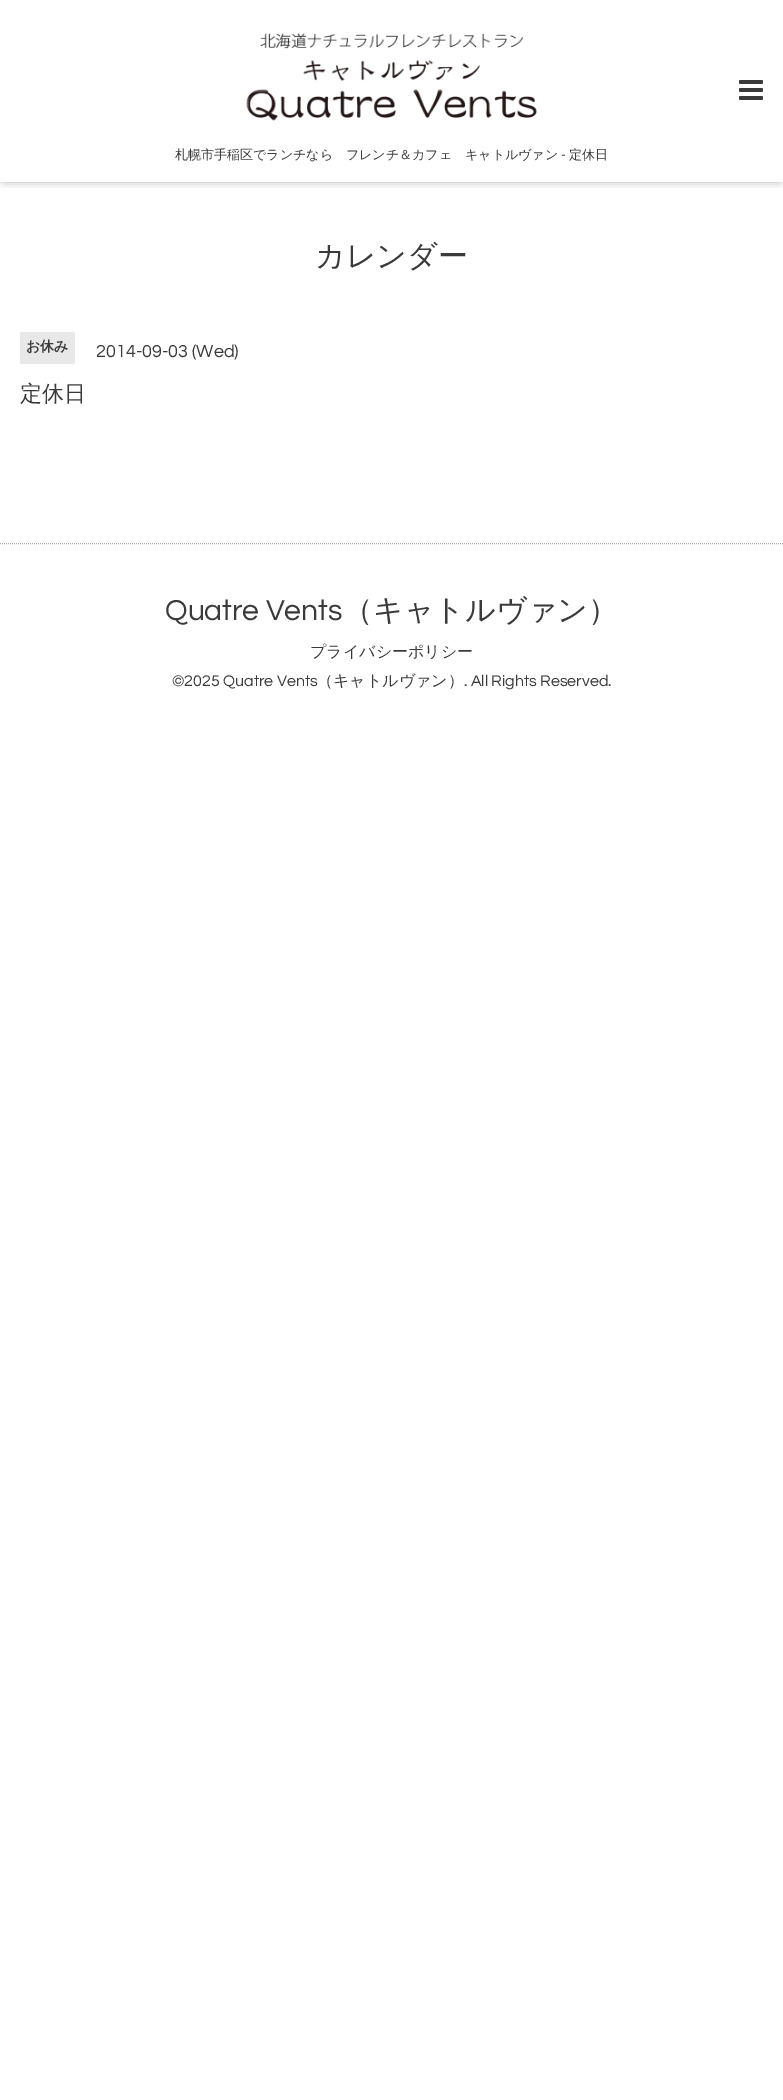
%!PS
<< /PageSize [783 2100] /PageUsesTransparency true >> setpagedevice
/rgb { 3 { 255 div 3 1 roll } repeat setrgbcolor } def
/font { [ exch dup neg 0 0 3 -1 roll 0 0 ] selectfont } def
/text { moveto show } def
/alpha { dup .setfillconstantalpha .setstrokeconstantalpha } def
/roundrect { 5 dict begin { /r /h /w /y /x } { exch def } forall
  x r add y moveto x w add y 2 copy h add r arct x w add y h add x 1 index r arct
  x y h add x y r arct x y 2 copy exch w add exch r arct closepath end } def
/shadow { 12 dict begin { /a /b /q /h /w /y /x } { exch def } forall gsave /was 0 def
  9 -2 -9 { dup b mul 4 div /e exch def 1 sub .425 mul 2.718 exch exp 1 add a .99 .min exch div /now exch def
    1 1 now sub 1 was sub div sub alpha /was now def
    w h .min e 2 mul add 0 gt { x e sub y e sub w e 2 mul add h e 2 mul add
      q e add b .6 mul add w h .min 2 div e add .min 0 .max roundrect fill } if } for grestore end } def
/picture { 5 dict begin { /h /w /y /x /name } { exch def } forall
  gsave x y translate w h scale
  w h 8 [w 0 0 h 0 0] name (r) file false 3 colorimage grestore end } def
0 .pushpdf14devicefilter
0 2100 translate 1 -1 scale
4 setmiterlimit
255 255 255 rgb
0 0 783 2100 rectfill
gsave
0 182 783 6 rectclip
0 0 0 rgb
4 5 775 174 0 5 0.6 shadow
grestore
(img_01.rgb) 739 80 24 20 picture
(img_02.rgb) 246 33 291 88 picture
232 232 232 rgb
20 332 55 32 2 roundrect fill
169 169 169 rgb
[1 1] 0 setdash
0 543.5 moveto 783 0 rlineto stroke
/WenQuanYiZenHei-Medium 13 font
58 58 58 rgb
(札幌市手稲区でランチなら　フレンチ＆カフェ　キャトルヴァン) 175 159 text
/Questrial-Regular 13 font
(-) 561 159 text
/WenQuanYiZenHei-Medium 13 font
(定休日) 569 159 text
/WenQuanYiZenHei-Medium 30 font
(カレンダー) 315 266 text
/WenQuanYiZenHei-Bold 14 font
(お休み) 26 351 text
/Questrial-Regular 18 font
(2014-09-03 \(Wed\)) 96 357 text
/WenQuanYiZenHei-Medium 22 font
(定休日) 20 401 text
/Questrial-Regular 30 font
(Quatre Vents) 165 620 text
/WenQuanYiZenHei-Medium 30 font
(（キャトルヴァン）) 343 620 text
/WenQuanYiZenHei-Medium 16 font
(プライバシーポリシー) 310 657 text
/Questrial-Regular 16 font
(©2025 Quatre Vents) 172 686 text
/WenQuanYiZenHei-Medium 16 font
(（キャトルヴァン）) 317 686 text
/Questrial-Regular 16 font
(. All Rights Reserved.) 464 686 text
.poppdf14devicefilter showpage
